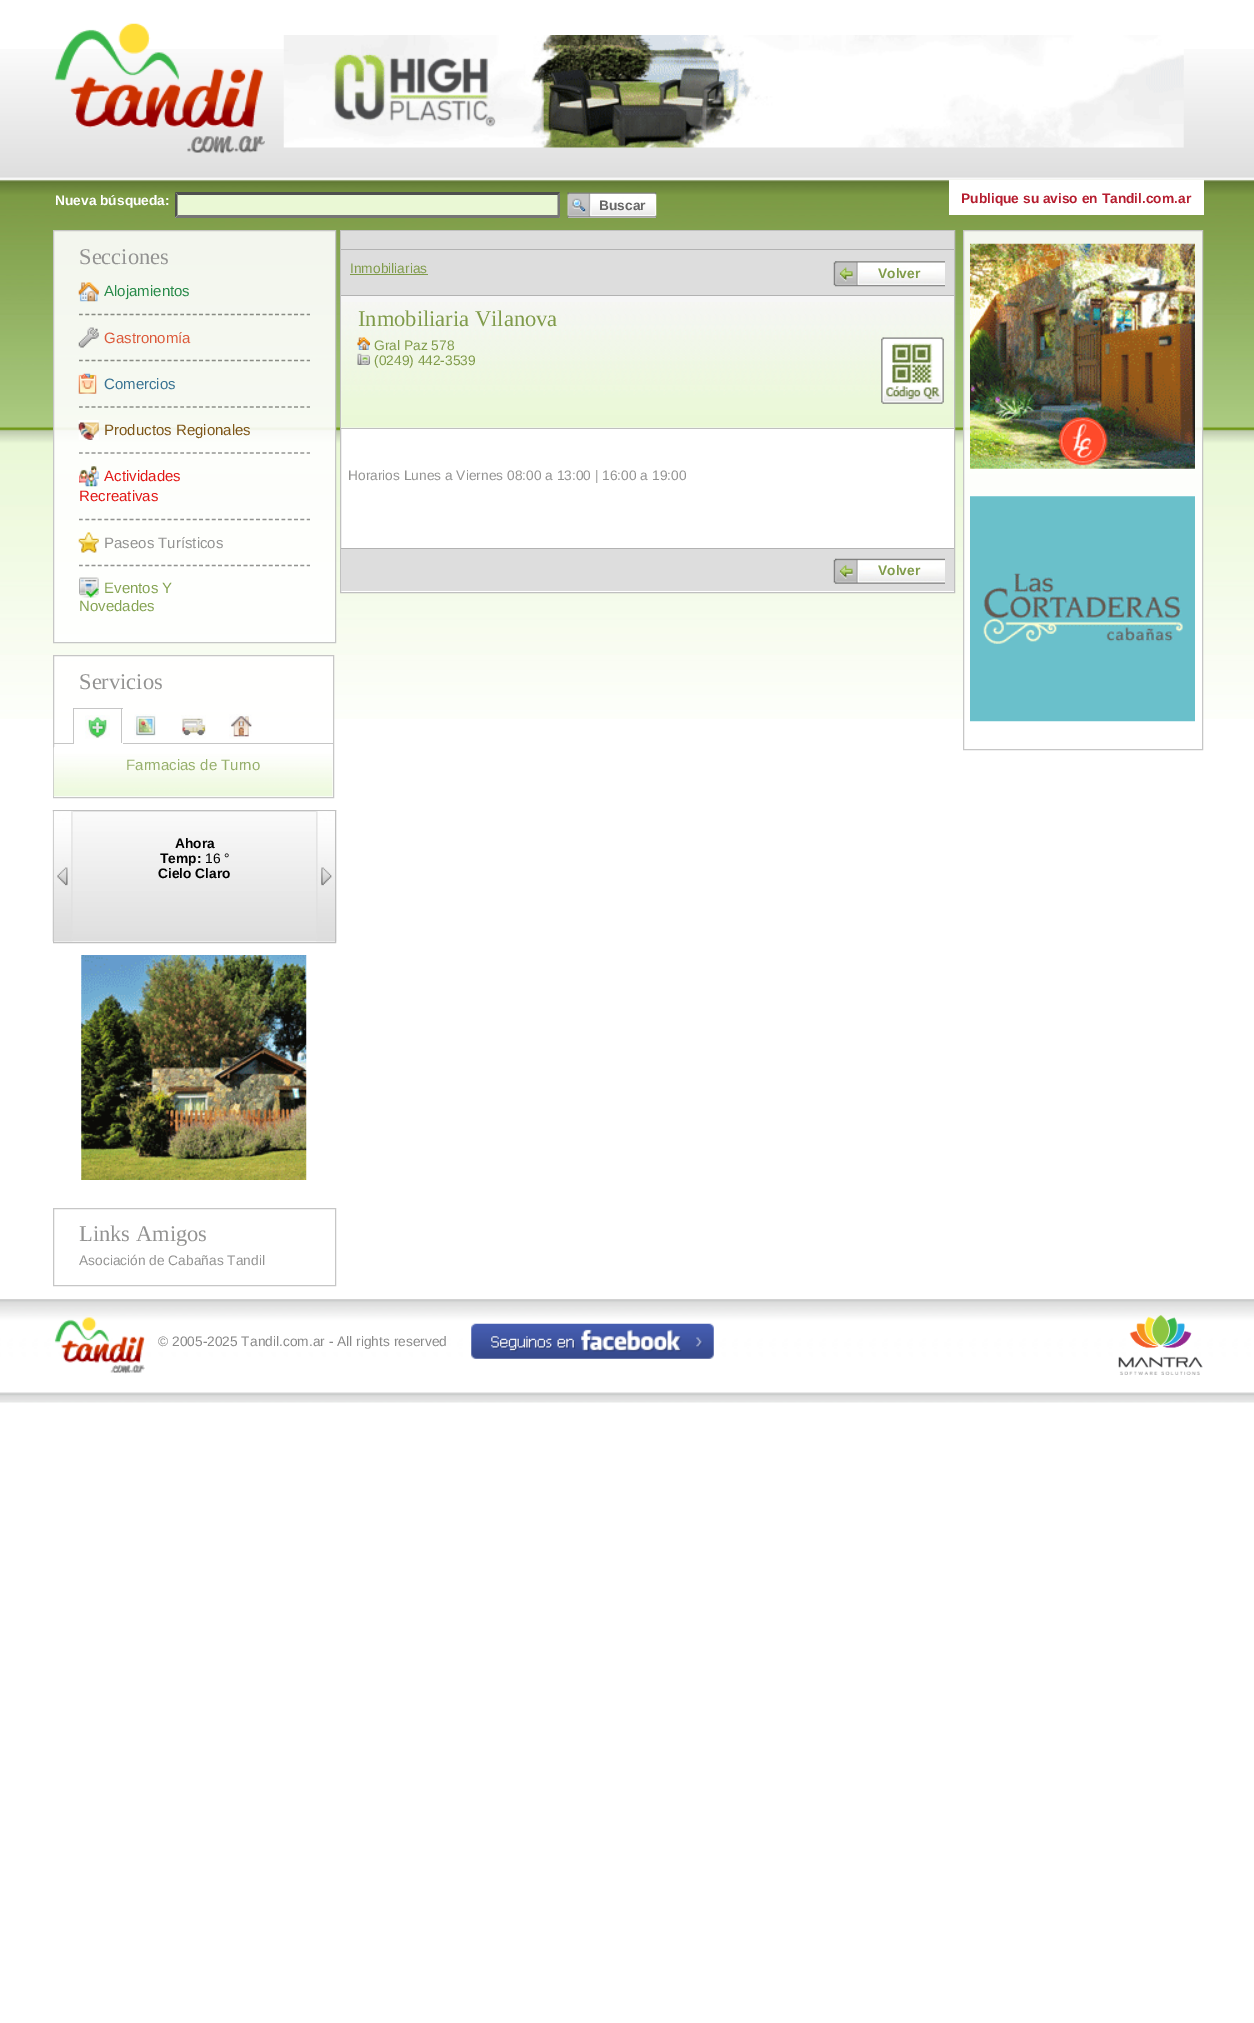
%!PS
<< /PageSize [1254 2023] /PageUsesTransparency true >> setpagedevice
/rgb { 3 { 255 div 3 1 roll } repeat setrgbcolor } def
/font { [ exch dup neg 0 0 3 -1 roll 0 0 ] selectfont } def
/text { moveto show } def
/alpha { dup .setfillconstantalpha .setstrokeconstantalpha } def
/picture { 5 dict begin { /h /w /y /x /name } { exch def } forall
  gsave x y translate w h scale
  w h 8 [w 0 0 h 0 0] name (r) file false 3 colorimage grestore end } def
0 .pushpdf14devicefilter
0 2023 translate 1 -1 scale
4 setmiterlimit
255 255 255 rgb
0 0 1254 2023 rectfill
(img_01.rgb) 0 49 1254 670 picture
(img_02.rgb) 54 23 211 131 picture
(img_03.rgb) 283 35 901 113 picture
234 248 213 rgb
175 193 385 25 rectfill
79 79 79 rgb
175 192 moveto 385 0 rlineto -2 3 rlineto -380 0 rlineto closepath fill
118 118 118 rgb
560 192.5 moveto 0 25 rlineto -2.5 -2.5 rlineto 0 -20 rlineto closepath fill
560 218 moveto -385 0 rlineto 3 -3 rlineto 380 0 rlineto closepath fill
79 79 79 rgb
175 217.5 moveto 0 -25 rlineto 2.5 2.5 rlineto 0 20 rlineto closepath fill
239 239 239 rgb
568 217 88 1 rectfill
(img_04.rgb) 567 192 90 26 picture
255 255 255 rgb
949 180 255 35 rectfill
0.9 alpha
53 230 283 413 rectfill
192 192 192 rgb
53.5 230.5 282 412 rectstroke
1 alpha
137 140 132 rgb
1.2 setlinewidth
[3.75 2.58] 0 setdash
79 314.5 moveto 231 0 rlineto stroke
(img_05.rgb) 78 282 21 20 picture
138 141 134 rgb
79 360.5 moveto 231 0 rlineto stroke
(img_06.rgb) 78 327 21 21 picture
139 142 135 rgb
79 407 moveto 231 0 rlineto stroke
(img_07.rgb) 78 373 19 21 picture
146 147 144 rgb
79 453 moveto 231 0 rlineto stroke
(img_08.rgb) 78 420 21 20 picture
146 147 145 rgb
79 519.5 moveto 231 0 rlineto stroke
(img_09.rgb) 79 466 20 21 picture
147 148 145 rgb
79 565.5 moveto 231 0 rlineto stroke
(img_10.rgb) 78 532 21 21 picture
(img_11.rgb) 79 577 20 21 picture
0.9 alpha
255 255 255 rgb
54 656 279 63 rectfill
1 alpha
198 198 198 rgb
1 setlinewidth
[] 0 setdash
53.5 655.5 280 142 rectstroke
73 708 50 1 rectfill
54 743 279 1 rectfill
0.9 alpha
192 192 192 rgb
121 708 1 36 rectfill
1 alpha
255 255 255 rgb
73 743 50 1 rectfill
0.9 alpha
192 192 192 rgb
73 708 1 36 rectfill
1 alpha
(img_12.rgb) 85 715 25 24 picture
(img_13.rgb) 134 714 22 25 picture
(img_14.rgb) 181 715 25 24 picture
(img_15.rgb) 229 714 23 25 picture
(img_16.rgb) 53 747 280 50 picture
(img_17.rgb) 52 810 285 132 picture
53.5 810.5 282 132 rectstroke
(img_18.rgb) 53 811 20 131 picture
(img_19.rgb) 316 811 19 131 picture
(img_20.rgb) 81 955 226 225 picture
198 198 198 rgb
53.5 1208.5 282 77 rectstroke
255 255 255 rgb
341 429 613 163 rectfill
192 192 192 rgb
340.5 230.5 614 362 rectstroke
221 221 221 rgb
341 231 613 18 rectfill
178 178 178 rgb
341 249 613 1 rectfill
221 221 221 rgb
341 250 613 45 rectfill
178 178 178 rgb
341 295 613 1 rectfill
128 155 74 rgb
350 274 78 1 rectfill
(img_21.rgb) 833 261 112 26 picture
246 246 246 rgb
341 296 613 132 rectfill
(img_22.rgb) 341 302 613 126 picture
192 192 192 rgb
341 428 613 1 rectfill
(img_23.rgb) 357 337 13 13 picture
(img_24.rgb) 357 353 13 12 picture
(img_25.rgb) 881 337 63 67 picture
221 221 221 rgb
341 549 613 42 rectfill
178 178 178 rgb
341 548 613 1 rectfill
(img_26.rgb) 833 558 112 26 picture
0.9 alpha
255 255 255 rgb
963 230 240 489 rectfill
192 192 192 rgb
963.5 230.5 239 519 rectstroke
1 alpha
(img_27.rgb) 970 243 225 226 picture
(img_28.rgb) 970 496 225 226 picture
(img_29.rgb) 0 1299 1254 104 picture
(img_30.rgb) 54 1317 91 57 picture
(img_31.rgb) 471 1323 243 36 picture
(img_32.rgb) 1118 1315 85 60 picture
/LiberationSans-Bold 13.75 font
255 255 255 rgb
(Nueva búsqueda:) 55 205 text
102 102 102 rgb
(Buscar) 599 210 text
181 29 47 rgb
(Publique su aviso en Tandil.com.ar) 961 203 text
/LiberationSerif-Regular 22.5 font
147 147 146 rgb
(Secciones) 79 264 text
/LiberationSans-Regular 15 font
39 138 73 rgb
(Alojamientos) 104 296 text
220 91 60 rgb
(Gastronomía) 104 343 text
57 115 147 rgb
(Comercios) 104 389 text
126 86 24 rgb
(Productos Regionales) 104 435 text
226 25 22 rgb
(Actividades) 104 481 text
(Recreativas) 79 501 text
147 147 146 rgb
(Paseos Turísticos) 104 548 text
134 164 84 rgb
(Eventos Y) 104 593 text
(Novedades) 79 611 text
/LiberationSerif-Regular 22.5 font
147 147 146 rgb
(Servicios) 79 689 text
/LiberationSans-Regular 15 font
151 176 108 rgb
(Farmacias de Turno) 126 770 text
/LiberationSans-Bold 13.75 font
0 0 0 rgb
(Ahora) 175 848 text
(Temp:) 160 863 text
/LiberationSans-Regular 13.75 font
(16 °) 205 863 text
/LiberationSans-Bold 13.75 font
(Cielo Claro) 158 878 text
/LiberationSerif-Regular 22.5 font
147 147 146 rgb
(Links Amigos) 79 1241 text
/LiberationSans-Regular 13.75 font
(Asociación de Cabañas Tandil) 79 1265 text
128 155 74 rgb
(Inmobiliarias) 350 273 text
/LiberationSans-Bold 13.75 font
(Volver) 878 278 text
/LiberationSerif-Regular 22.5 font
(Inmobiliaria Vilanova) 358 326 text
/LiberationSans-Regular 13.75 font
(Gral Paz 578) 374 350 text
(\(0249\) 442-3539) 374 365 text
147 147 146 rgb
(Horarios Lunes a Viernes 08:00 a 13:00 | 16:00 a 19:00) 348 480 text
/LiberationSans-Bold 13.75 font
128 155 74 rgb
(Volver) 878 575 text
/LiberationSans-Regular 13.75 font
136 136 136 rgb
(© 2005-2025 Tandil.com.ar - All rights reserved) 158 1346 text
.poppdf14devicefilter showpage
